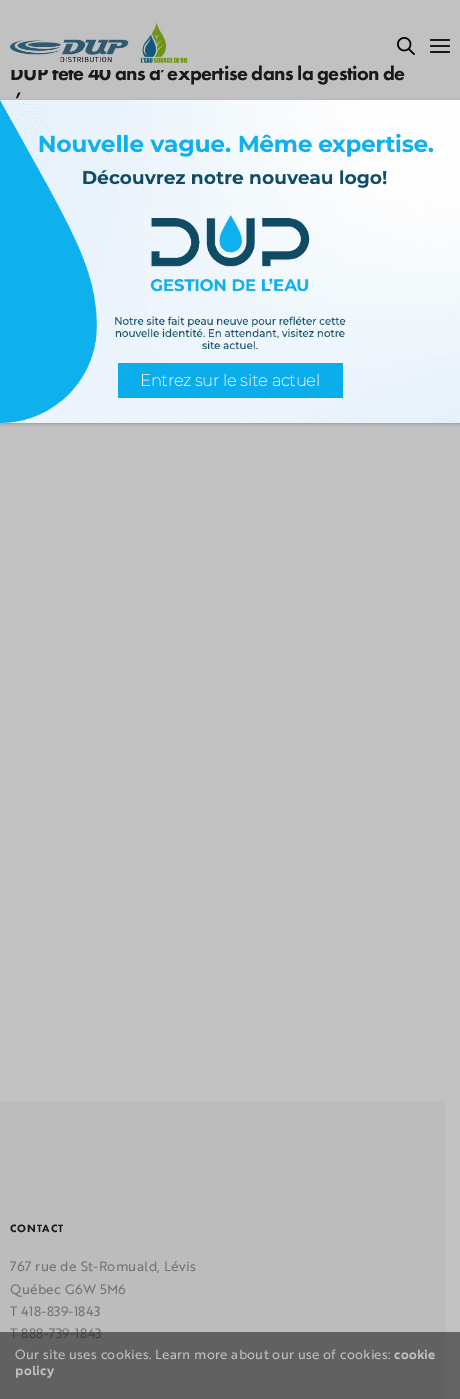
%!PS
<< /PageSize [460 1399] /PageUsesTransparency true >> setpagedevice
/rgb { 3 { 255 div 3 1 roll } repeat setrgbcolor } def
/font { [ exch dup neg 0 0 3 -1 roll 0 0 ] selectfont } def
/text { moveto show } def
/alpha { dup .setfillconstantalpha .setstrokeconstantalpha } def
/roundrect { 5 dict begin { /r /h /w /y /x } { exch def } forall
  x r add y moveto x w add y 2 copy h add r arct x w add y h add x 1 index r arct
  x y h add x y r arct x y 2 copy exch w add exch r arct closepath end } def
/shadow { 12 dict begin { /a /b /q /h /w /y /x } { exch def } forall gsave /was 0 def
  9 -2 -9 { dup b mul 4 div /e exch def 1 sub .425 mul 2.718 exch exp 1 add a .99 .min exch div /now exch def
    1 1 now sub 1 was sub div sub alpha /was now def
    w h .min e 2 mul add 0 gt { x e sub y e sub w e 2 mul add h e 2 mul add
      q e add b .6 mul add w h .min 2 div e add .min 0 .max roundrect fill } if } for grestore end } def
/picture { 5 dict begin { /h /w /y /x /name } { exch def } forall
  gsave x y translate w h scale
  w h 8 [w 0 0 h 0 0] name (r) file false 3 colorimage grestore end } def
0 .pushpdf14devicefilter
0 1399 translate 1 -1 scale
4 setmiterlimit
193 193 193 rgb
0 0 460 1399 rectfill
(img_02.rgb) 397 37 18 18 picture
25 25 25 rgb
430 39 20 2 1 roundrect fill
430 45 20 2 1 roundrect fill
430 51 20 2 1 roundrect fill
188 188 189 rgb
0 1101 445 298 rectfill
gsave
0 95 moveto 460 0 rlineto 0 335 rlineto -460 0 rlineto closepath 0 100 moveto 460 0 rlineto 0 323 rlineto -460 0 rlineto closepath eoclip newpath
2 2 2 rgb
1 101 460 323 0 1.5 0.22 shadow
grestore
(img_03.rgb) 0 100 460 323 picture
11 174 235 rgb
118 363 225 35 rectfill
/FuturaPT-Black 20 font
25 25 25 rgb
10 80 moveto -0.6 0 (DUP fête 40 ans d’expertise dans la gestion de) ashow
(img_01.rgb) 10 22 178 48 picture
15 106 moveto -0.6 0 (’) ashow
/FuturaPT-Black 11 font
10 1232 moveto 0.75 0 (CONTACT) ashow
/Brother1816-Regular 13.3 font
115 115 115 rgb
10 1271 moveto 0.25 0 (767 rue de St-Romuald, Lévis) ashow
10 1294 moveto 0.25 0 (Québec G6W 5M6) ashow
10 1316 moveto 0.25 0 (T 418-839-1843) ashow
10 1338 moveto 0.25 0 (T 888-739-1843) ashow
/Montserrat-Bold 16 font
251 251 251 rgb
(Entrez sur le site actuel) 140 386 text
0.56 alpha
25 25 25 rgb
0 1332 460 67 rectfill
/Brother1816-Regular 13 font
1 alpha
191 191 191 rgb
15 1359 moveto 0.25 0 (Our site uses cookies. Learn more about our use of cookies:) ashow
/Brother1816-Bold 13 font
394 1359 moveto 0.25 0 (cookie) ashow
15 1375 moveto 0.25 0 (policy) ashow
.poppdf14devicefilter showpage
